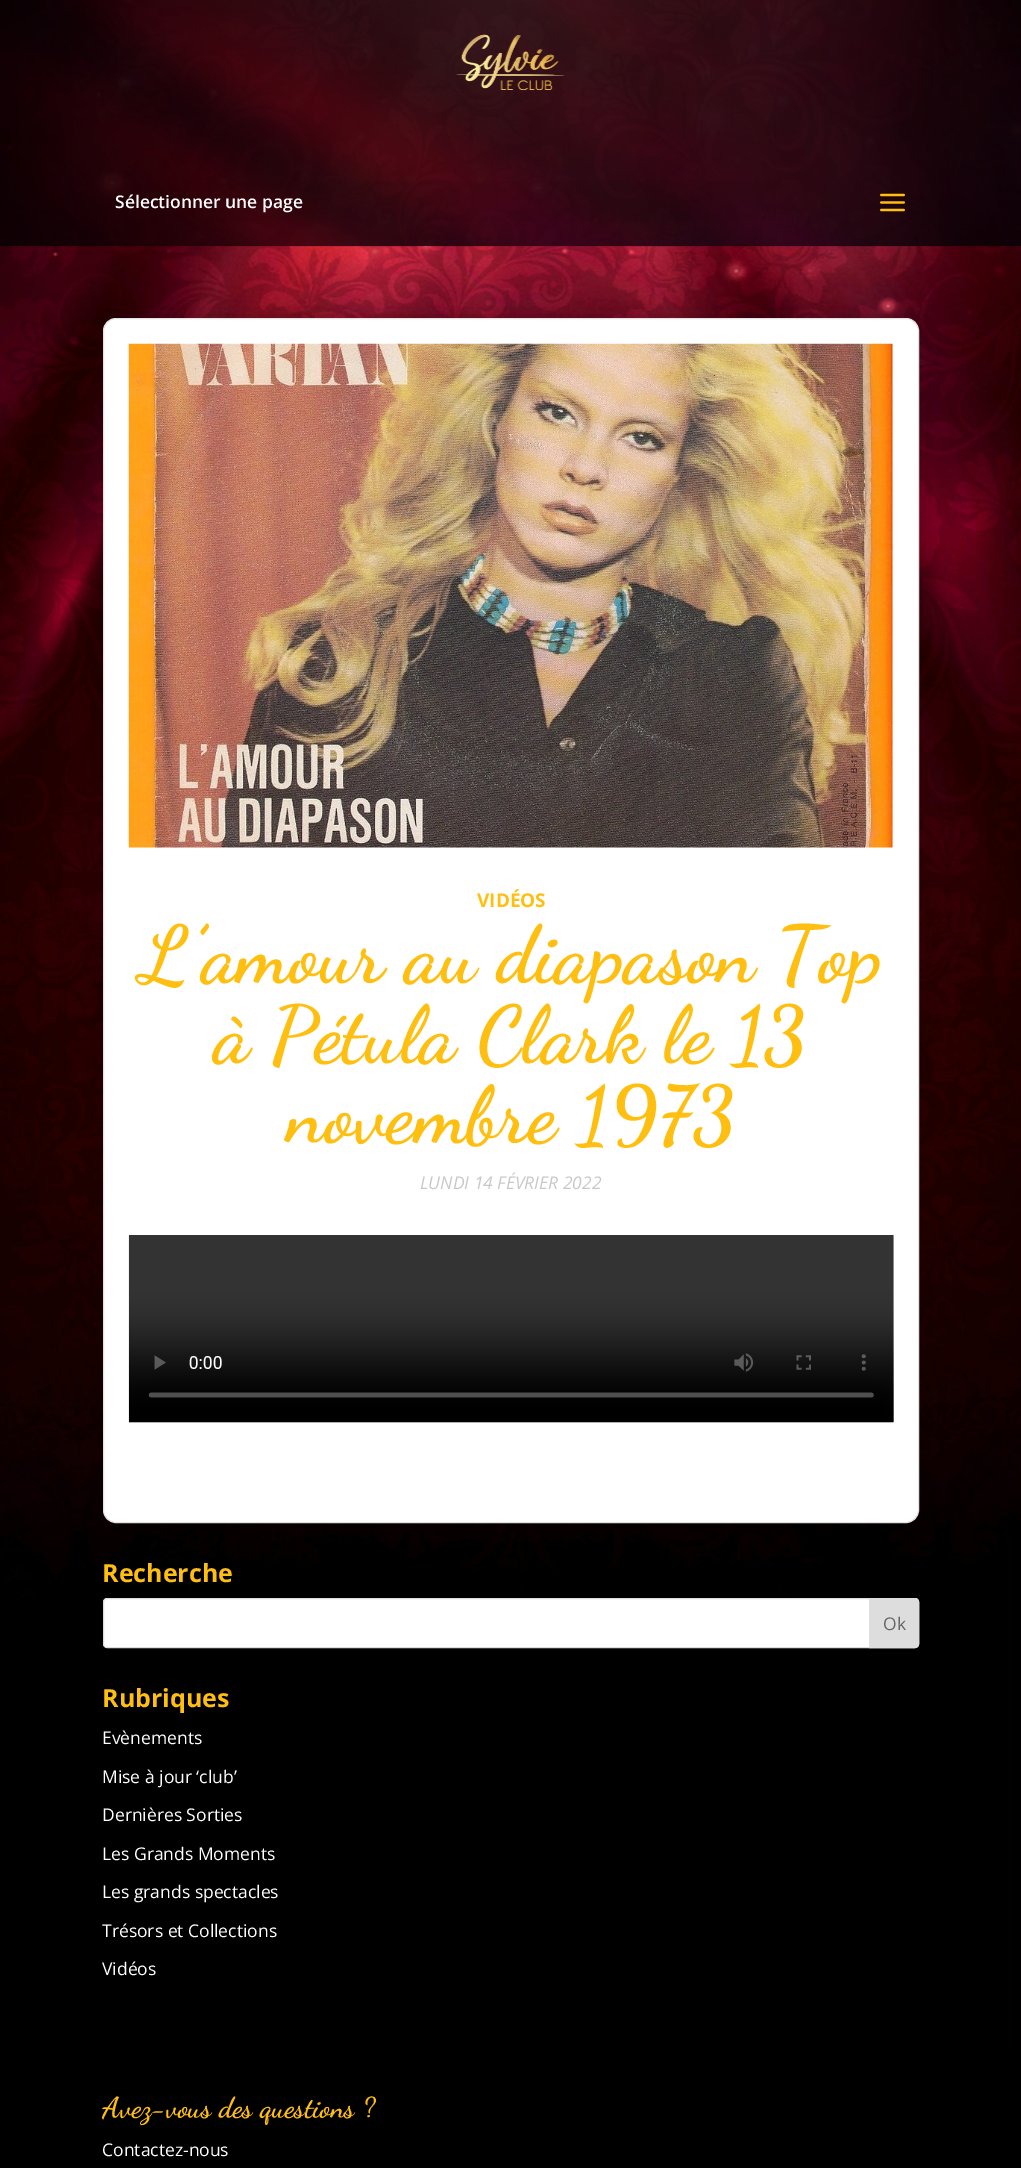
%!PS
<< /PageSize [1021 2168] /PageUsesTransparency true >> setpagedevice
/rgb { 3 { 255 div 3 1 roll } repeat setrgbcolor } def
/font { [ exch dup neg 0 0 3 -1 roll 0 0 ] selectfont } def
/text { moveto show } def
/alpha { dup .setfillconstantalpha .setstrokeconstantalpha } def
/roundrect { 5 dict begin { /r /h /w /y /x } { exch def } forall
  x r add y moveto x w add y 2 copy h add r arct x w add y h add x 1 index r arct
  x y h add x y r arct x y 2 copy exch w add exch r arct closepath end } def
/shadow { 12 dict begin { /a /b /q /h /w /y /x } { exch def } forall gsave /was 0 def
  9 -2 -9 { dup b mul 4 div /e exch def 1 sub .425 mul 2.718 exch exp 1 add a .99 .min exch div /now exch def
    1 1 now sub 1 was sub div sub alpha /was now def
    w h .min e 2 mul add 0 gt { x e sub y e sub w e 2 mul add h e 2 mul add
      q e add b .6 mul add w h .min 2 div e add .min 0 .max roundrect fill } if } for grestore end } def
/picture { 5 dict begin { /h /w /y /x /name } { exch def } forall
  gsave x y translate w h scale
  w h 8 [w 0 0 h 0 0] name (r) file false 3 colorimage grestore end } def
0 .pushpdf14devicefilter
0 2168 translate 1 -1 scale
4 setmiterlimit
255 255 255 rgb
0 0 1021 2168 rectfill
(img_01.rgb) 0 0 1021 2056 picture
0.75 alpha
0 0 0 rgb
0 0 1021 246 rectfill
1 alpha
(img_02.rgb) 0 0 1021 247 picture
(img_03.rgb) 456 34 108 57 picture
0.05 alpha
207 181 569 40 rectfill
1 alpha
(img_04.rgb) 880 193 25 19 picture
103 318 816 1205 13 15.5 0.2 shadow
255 255 255 rgb
103.5 318.5 815 1204 12.5 roundrect gsave fill grestore
226 226 226 rgb
stroke
(img_05.rgb) 128 343 765 505 picture
(img_06.rgb) 128 1235 766 188 picture
255 255 255 rgb
103.5 1598.5 815 49 3.5 roundrect gsave fill grestore
221 221 221 rgb
stroke
869.5 1598.5 moveto 45.5 0 rlineto 2 0 3.5 1.5 3.5 3.5 rcurveto 0 42 rlineto 0 2 -1.5 3.5 -3.5 3.5 rcurveto -45.5 0 rlineto closepath gsave fill grestore
stroke
0 0 0 rgb
0 2056 1021 112 rectfill
/OpenSans-SemiBold 17.5 font
255 255 255 rgb
(Sélectionner une page) 115 208 text
/OpenSans-Bold 19 font
255 191 17 rgb
(VIDÉOS) 477 907 text
/DancingScript-Bold 80 font
(L’amour au diapason Top) 140 981 text
(à Pétula Clark le 13) 214 1061 text
(novembre 1973) 287 1141 text
/OpenSans-Italic 17.5 font
200 200 200 rgb
(LUNDI 14 FÉVRIER 2022) 420 1189 text
/OpenSans-Bold 25 font
255 191 17 rgb
(Recherche) 102 1582 text
/OpenSans-Regular 17.5 font
102 102 102 rgb
(Ok) 883 1630 text
/OpenSans-Bold 25 font
255 191 17 rgb
(Rubriques) 102 1707 text
/OpenSans-Regular 17.5 font
255 255 255 rgb
(Evènements) 102 1744 text
(Mise à jour ‘club’) 102 1783 text
(Dernières Sorties) 102 1821 text
(Les Grands Moments) 102 1860 text
(Les grands spectacles) 102 1898 text
(Trésors et Collections) 102 1937 text
(Vidéos) 102 1975 text
/DancingScript-Bold 28.75 font
255 191 17 rgb
(Avez-vous des questions ?) 102 2117 text
/OpenSans-Regular 17.5 font
255 255 255 rgb
(Contactez-nous) 102 2156 text
.poppdf14devicefilter showpage
